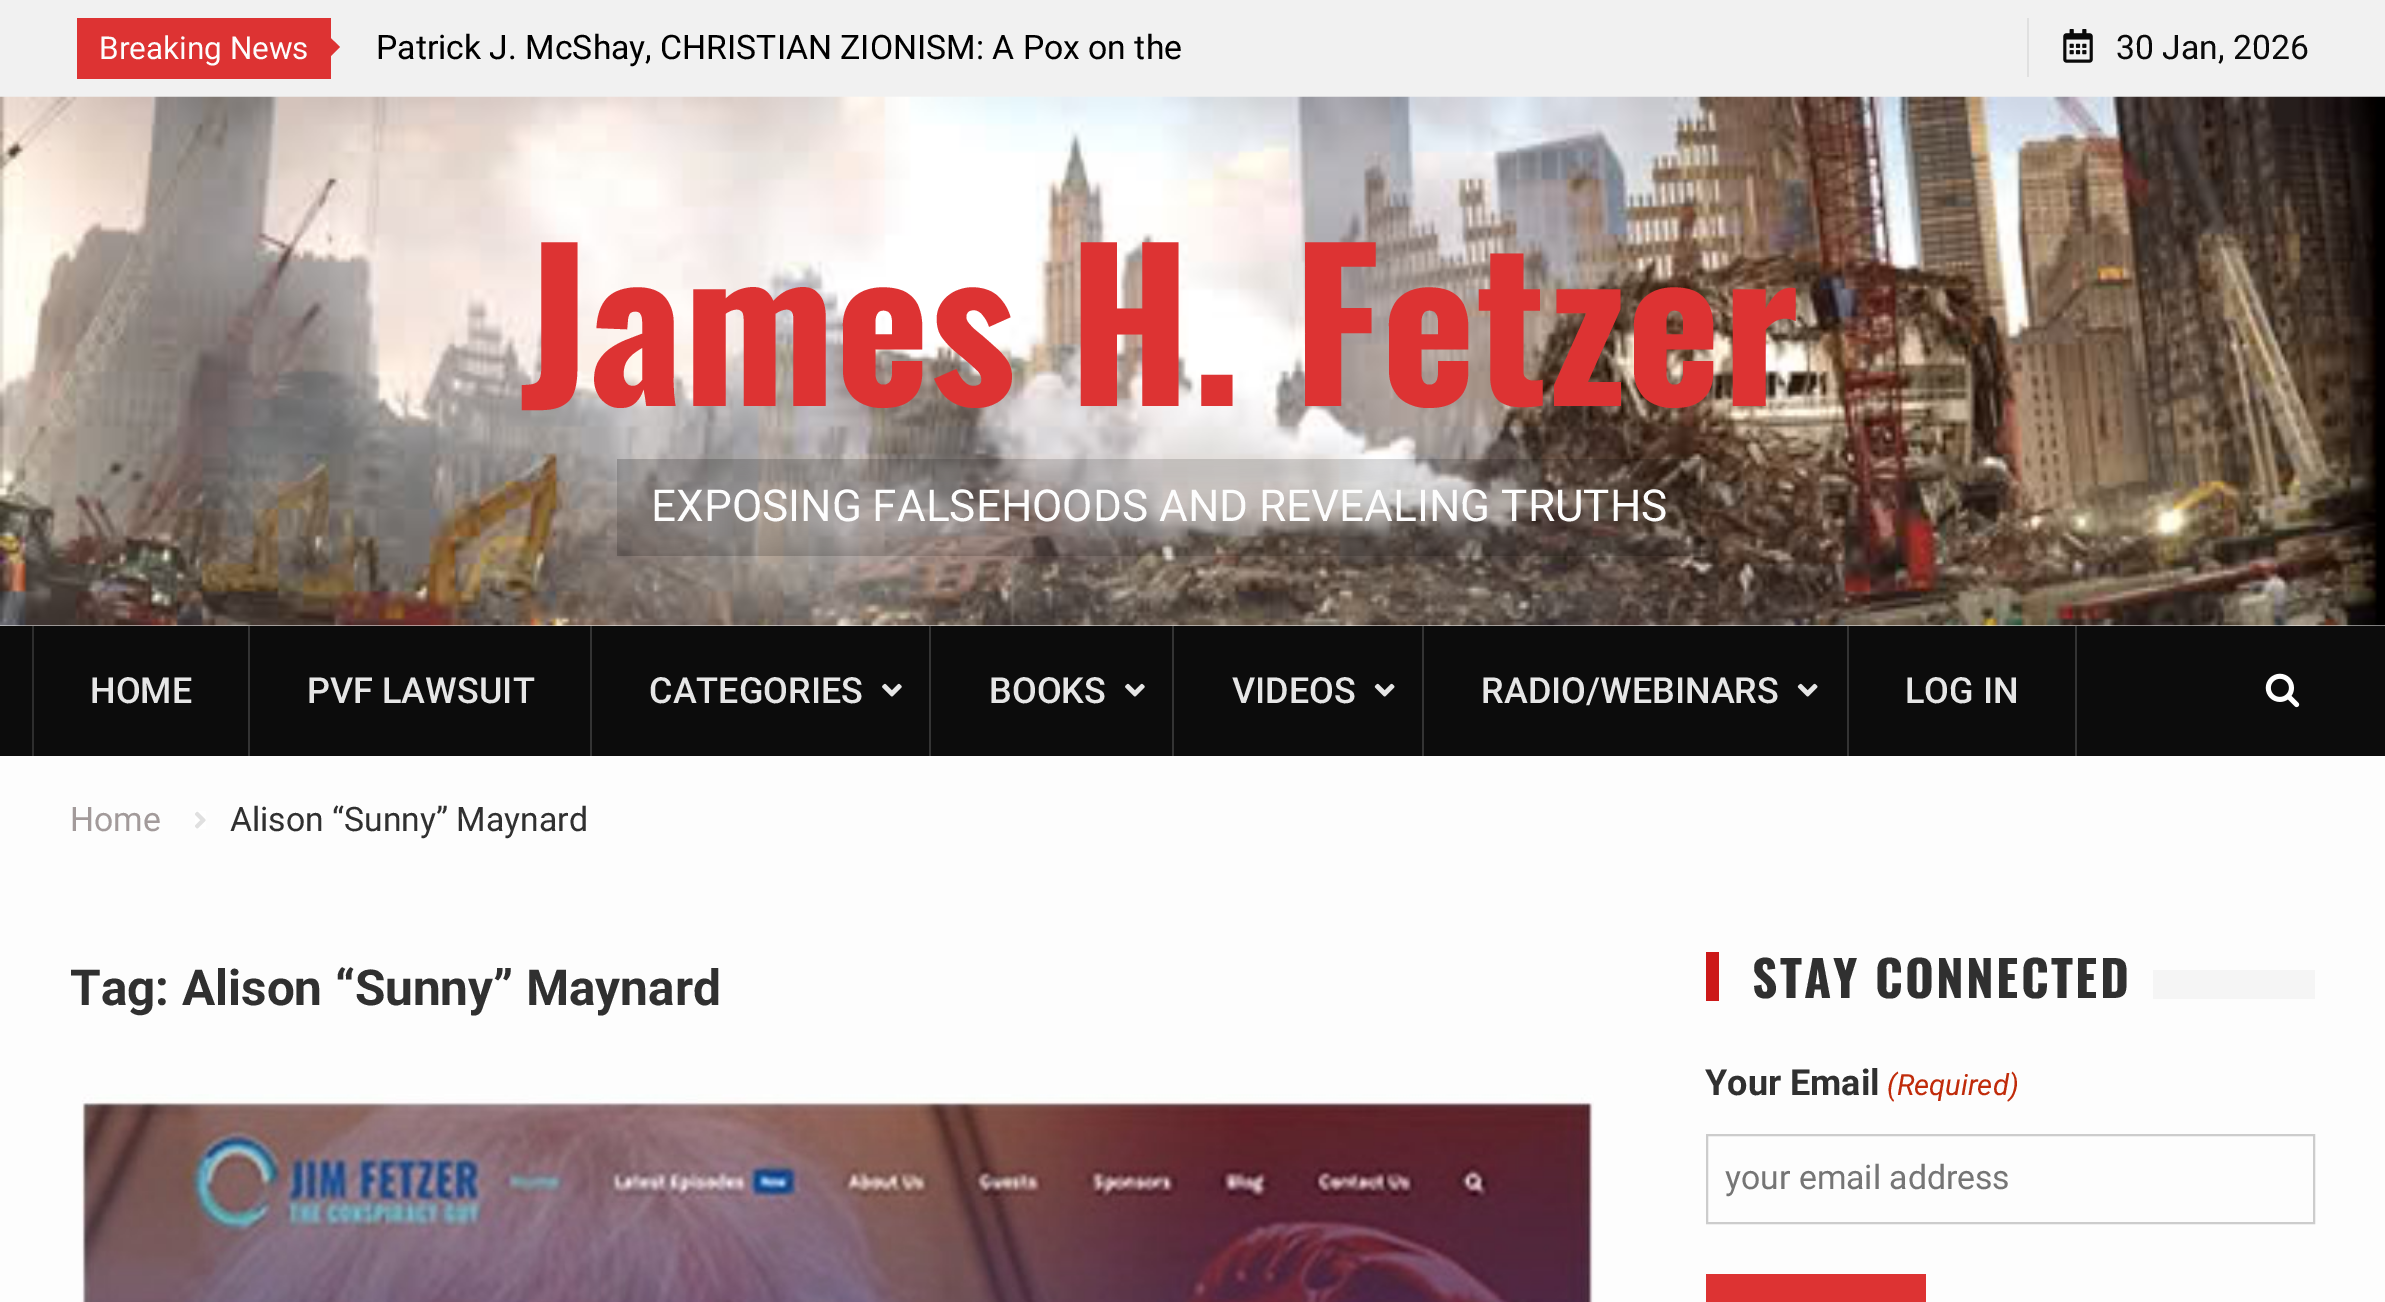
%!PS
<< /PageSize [2385 1302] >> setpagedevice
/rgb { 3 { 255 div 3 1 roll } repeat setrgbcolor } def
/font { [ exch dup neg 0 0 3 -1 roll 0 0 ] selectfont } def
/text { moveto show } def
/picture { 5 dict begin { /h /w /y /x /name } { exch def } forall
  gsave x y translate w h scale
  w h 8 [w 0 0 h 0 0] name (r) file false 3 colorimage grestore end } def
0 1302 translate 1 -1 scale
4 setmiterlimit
253 253 253 rgb
0 0 2385 1302 rectfill
241 241 241 rgb
0 0 2385 97 rectfill
221 51 51 rgb
77 18 254 61 rectfill
317 70 moveto 0 -45 rlineto 23 22 rlineto closepath fill
224 224 224 rgb
2027 18 2 59 rectfill
(img_01.rgb) 2063 29 30 34 picture
(img_02.rgb) 0 96 2385 530 picture
12 12 12 rgb
0 626 2385 130 rectfill
52 52 52 rgb
248 626 2 130 rectfill
46 46 46 rgb
32 626 2 130 rectfill
52 52 52 rgb
590 626 2 130 rectfill
929 626 2 130 rectfill
(img_03.rgb) 882 683 20 14 picture
1172 626 2 130 rectfill
(img_03.rgb) 1125 683 20 14 picture
1422 626 2 130 rectfill
(img_04.rgb) 1374 683 21 14 picture
1847 626 2 130 rectfill
(img_04.rgb) 1797 683 21 14 picture
2075 626 2 130 rectfill
(img_05.rgb) 2265 673 35 35 picture
(img_06.rgb) 195 811 11 18 picture
(img_07.rgb) 81 1094 1513 208 picture
204 25 25 rgb
1706 952 13 49 rectfill
245 245 245 rgb
2153 970 162 29 rectfill
204 204 204 rgb
2 setlinewidth
1707 1135 607 88 rectstroke
221 51 51 rgb
1706 1274 220 28 rectfill
/Roboto-Regular 31.5 font
253 253 253 rgb
(Breaking News) 99 59 text
/Roboto-Regular 33.75 font
0 0 0 rgb
(Patrick J. McShay, CHRISTIAN ZIONISM: A Pox on the) 376 59 text
10 10 10 rgb
(30 Jan, 2026) 2116 59 text
/Oswald-Bold 202.5 font
221 51 51 rgb
(James H. Fetzer) 519 406 text
/Roboto-Regular 44.1 font
253 253 253 rgb
(EXPOSING FALSEHOODS AND REVEALING TRUTHS) 651 521 text
/Roboto-Medium 36 font
230 230 230 rgb
(HOME) 90 703 text
(PVF LAWSUIT) 307 703 text
(CATEGORIES) 649 703 text
(BOOKS) 989 703 text
(VIDEOS) 1232 703 text
(RADIO/WEBINARS) 1481 703 text
(LOG IN) 1905 703 text
/Roboto-Regular 33.75 font
162 154 154 rgb
(Home) 70 831 text
48 48 48 rgb
(Alison “Sunny” Maynard) 230 831 text
/Roboto-Bold 49.5 font
(Tag: Alison “Sunny” Maynard) 70 1005 text
/Oswald-Bold 49.5 font
1752 998 moveto 2.25 0 (STAY CONNECTED) ashow
/Roboto-Bold 36 font
(Your Email) 1705 1095 text
/Roboto-Italic 29.25 font
192 43 10 rgb
(\(Required\)) 1887 1095 text
/Roboto-Regular 33.75 font
117 117 117 rgb
(your email address) 1725 1189 text
showpage
